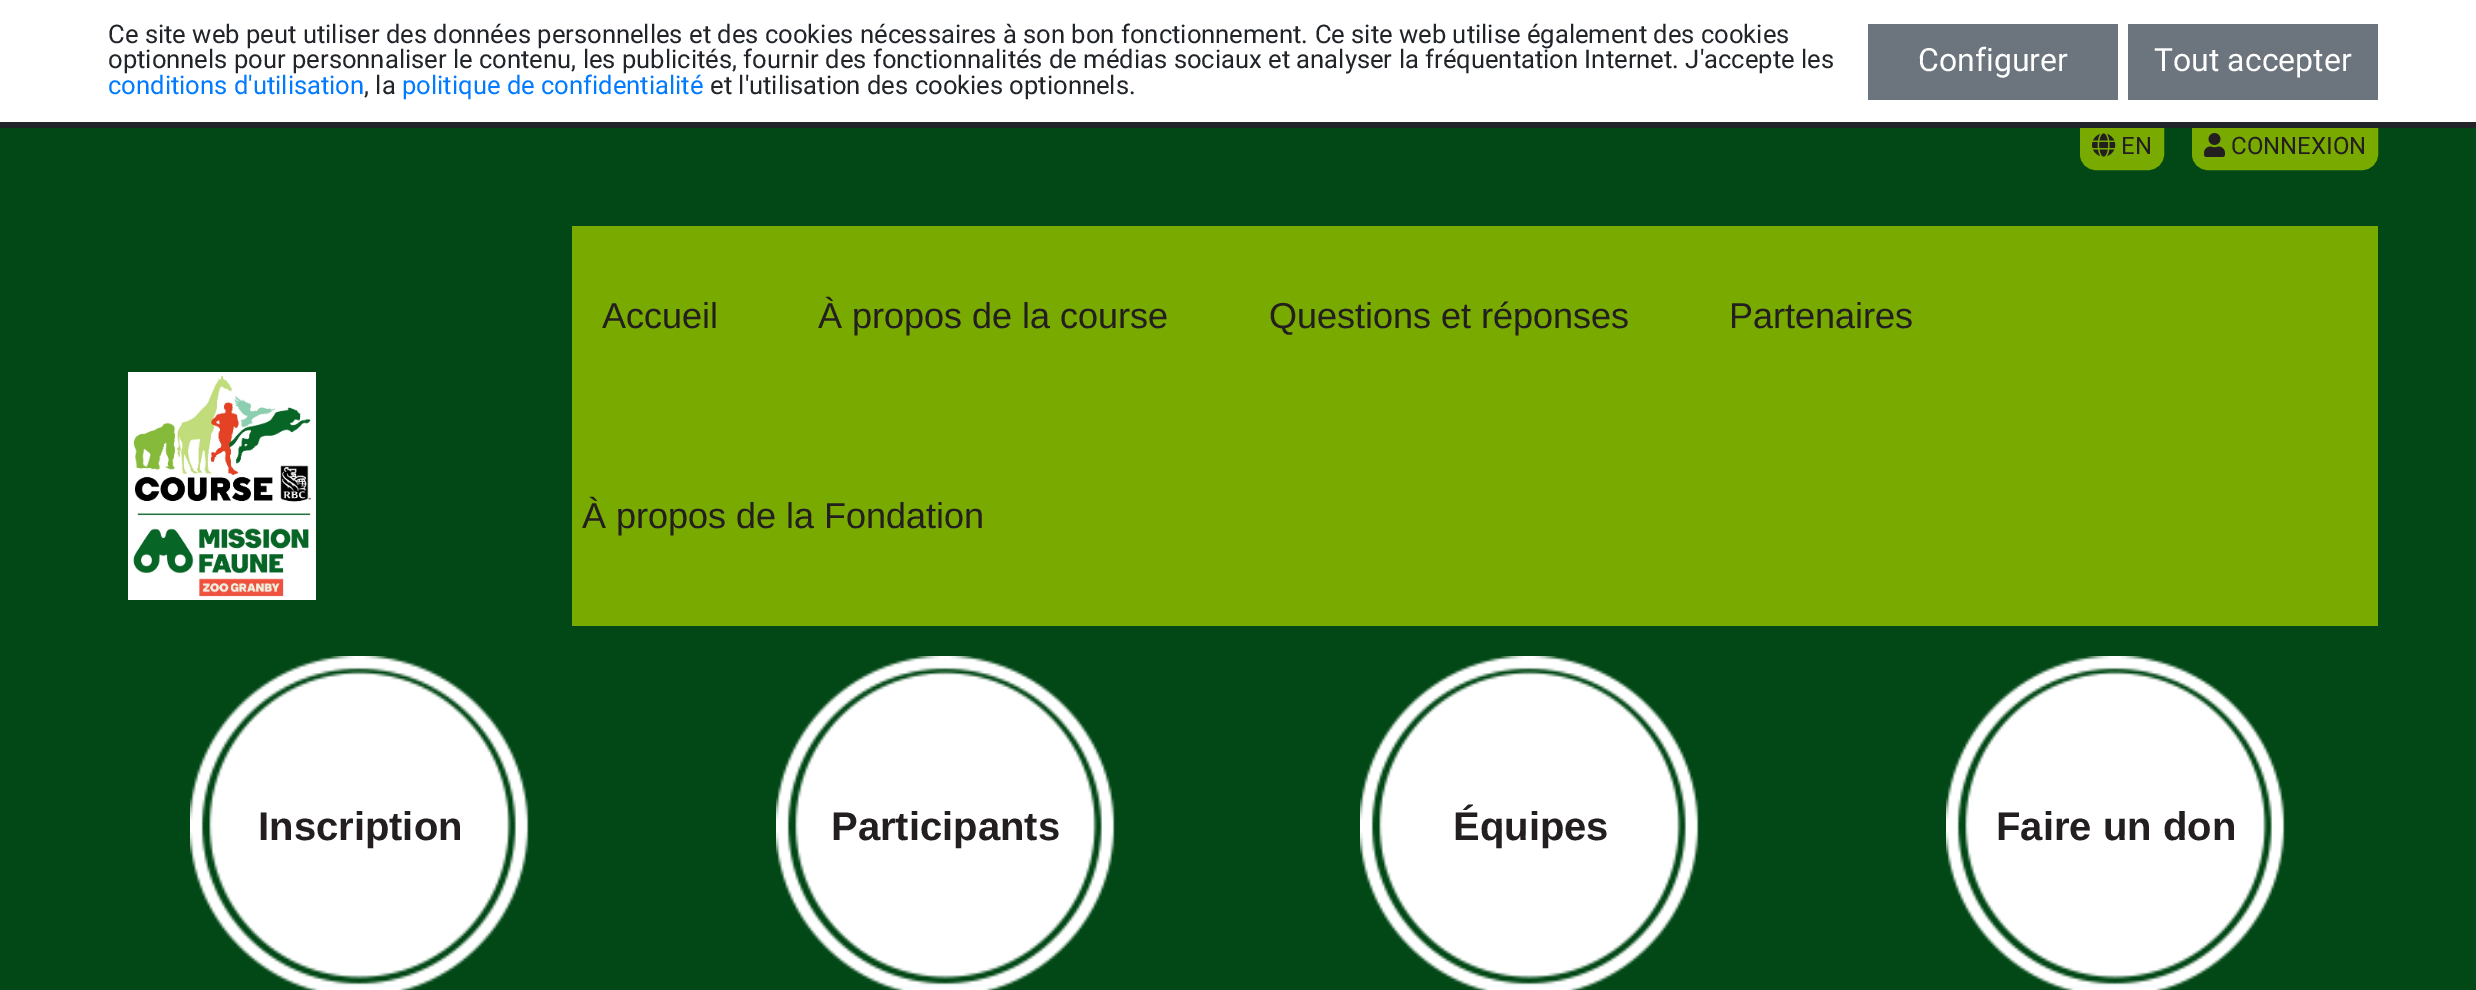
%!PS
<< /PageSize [2476 990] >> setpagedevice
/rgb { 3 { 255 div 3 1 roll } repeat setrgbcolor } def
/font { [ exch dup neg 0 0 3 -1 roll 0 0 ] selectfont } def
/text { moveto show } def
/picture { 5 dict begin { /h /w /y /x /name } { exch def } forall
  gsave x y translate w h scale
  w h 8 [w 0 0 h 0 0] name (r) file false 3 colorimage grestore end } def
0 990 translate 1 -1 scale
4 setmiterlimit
2 72 22 rgb
0 0 2476 990 rectfill
255 255 255 rgb
0 0 2476 122 rectfill
121 170 0 rgb
2081 123 moveto 82 0 rlineto 0 31 rlineto 0 8.5 -6.5 15 -15 15 rcurveto -52 0 rlineto -8.5 0 -15 -6.5 -15 -15 rcurveto closepath gsave fill grestore
2 setlinewidth
stroke
2193 123 moveto 184 0 rlineto 0 31 rlineto 0 8.5 -6.5 15 -15 15 rcurveto -154 0 rlineto -8.5 0 -15 -6.5 -15 -15 rcurveto closepath gsave fill grestore
stroke
33 37 41 rgb
0 122 2476 6 rectfill
108 117 125 rgb
1868 24 250 76 rectfill
2128 24 250 76 rectfill
(img_01.rgb) 2092 133 24 24 picture
(img_02.rgb) 2204 133 21 24 picture
(img_03.rgb) 128 372 188 228 picture
121 170 0 rgb
572 226 1806 400 rectfill
(img_04.rgb) 190 656 339 334 picture
(img_04.rgb) 776 656 339 334 picture
(img_05.rgb) 1360 656 339 334 picture
(img_04.rgb) 1946 656 339 334 picture
/Roboto-Regular 25.6 font
33 37 41 rgb
(Ce site web peut utiliser des données personnelles et des cookies nécessaires à son bon fonctionnement. Ce site web utilise également des cookies) 108 43 text
(optionnels pour personnaliser le contenu, les publicités, fournir des fonctionnalités de médias sociaux et analyser la fréquentation Internet. J'accepte les) 108 68 text
0 123 255 rgb
(conditions d'utilisation) 108 94 text
33 37 41 rgb
(, la) 364 94 text
0 123 255 rgb
(politique de confidentialité) 402 94 text
33 37 41 rgb
(et l'utilisation des cookies optionnels.) 710 94 text
/Roboto-Regular 32 font
255 255 255 rgb
(Configurer) 1918 71 text
(Tout accepter) 2154 71 text
/Roboto-Regular 24 font
35 31 32 rgb
(EN) 2121 154 text
(CONNEXION) 2231 154 text
/LiberationSans-Regular 36 font
(Accueil) 602 328 text
(À propos de la course) 818 328 text
(Questions et réponses) 1269 328 text
(Partenaires) 1729 328 text
(À propos de la Fondation) 582 528 text
/LiberationSans-Bold 40 font
(Inscription) 258 840 text
(Participants) 831 840 text
(Équipes) 1453 840 text
(Faire un don) 1996 840 text
showpage
